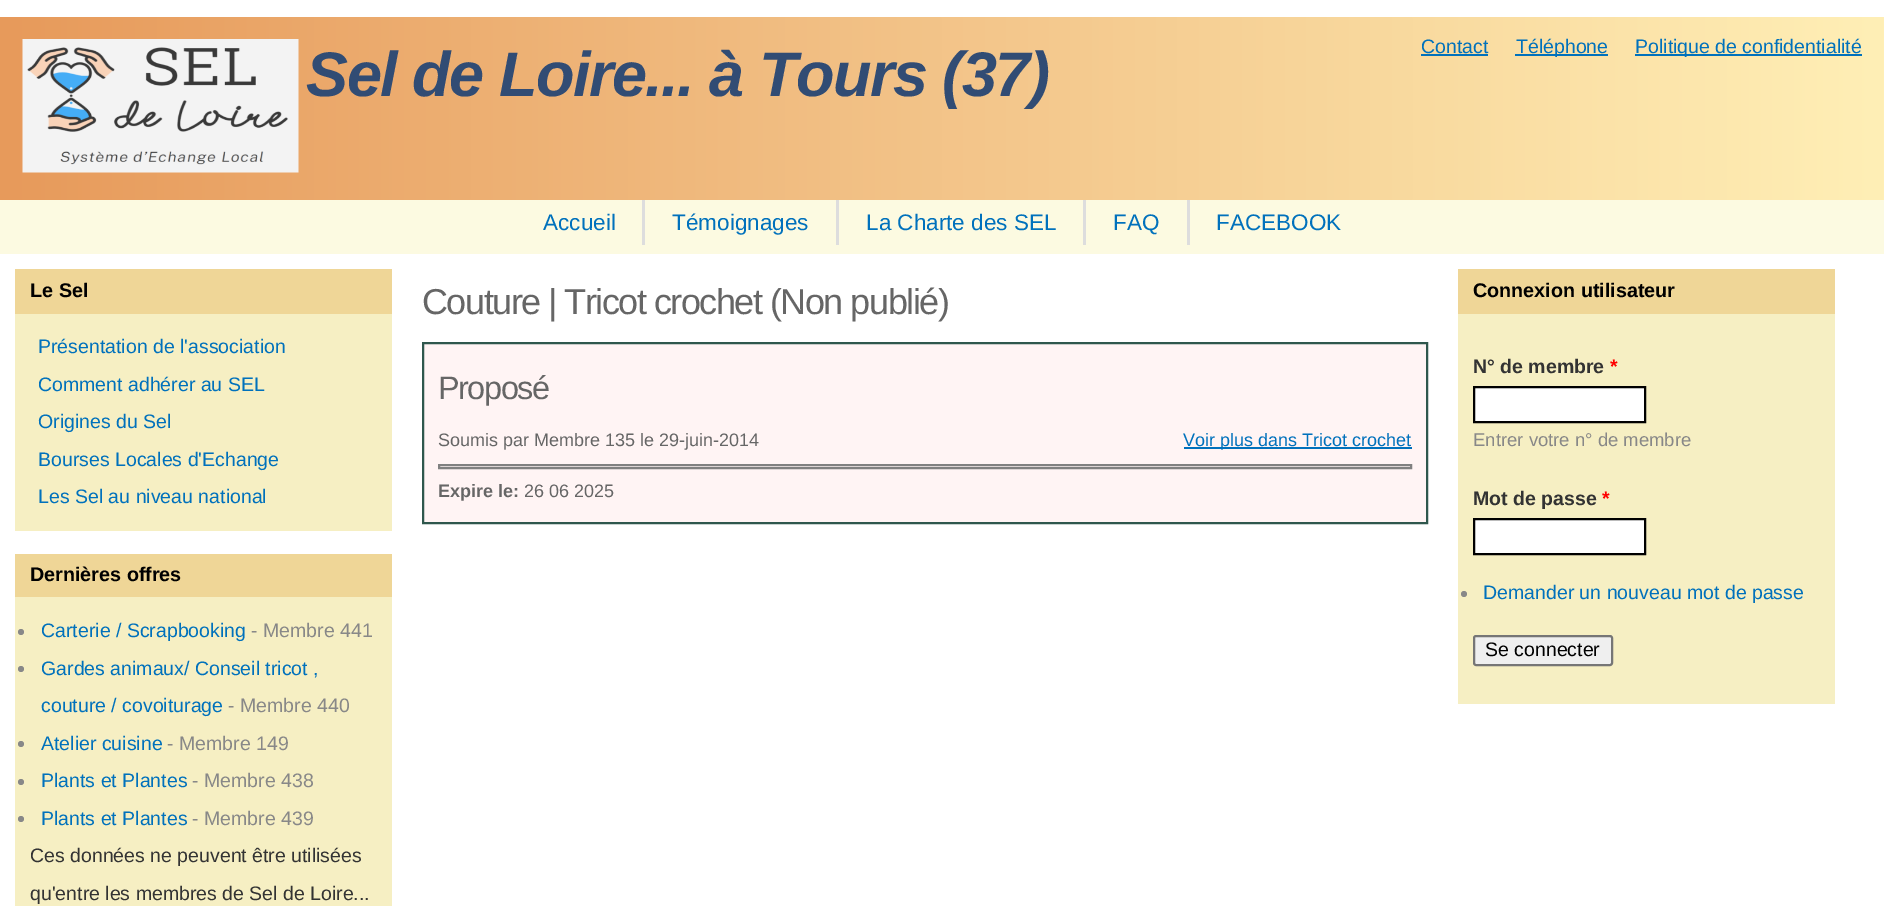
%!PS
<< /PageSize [1884 906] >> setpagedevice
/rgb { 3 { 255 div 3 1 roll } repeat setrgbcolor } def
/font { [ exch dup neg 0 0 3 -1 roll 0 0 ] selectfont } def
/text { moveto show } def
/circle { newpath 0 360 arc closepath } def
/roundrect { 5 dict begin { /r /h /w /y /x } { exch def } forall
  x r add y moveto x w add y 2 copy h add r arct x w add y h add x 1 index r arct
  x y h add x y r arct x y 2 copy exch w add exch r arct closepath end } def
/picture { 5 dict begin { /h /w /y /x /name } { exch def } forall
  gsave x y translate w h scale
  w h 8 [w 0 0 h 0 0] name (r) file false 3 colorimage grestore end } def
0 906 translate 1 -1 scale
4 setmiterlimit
255 255 255 rgb
0 0 1884 906 rectfill
gsave 0 17 moveto 1884 0 rlineto 0 183 rlineto -1884 0 rlineto closepath clip newpath
<< /ShadingType 2 /ColorSpace /DeviceRGB /Coords [0 108 1884 108] /Extend [true true] /Function << /FunctionType 2 /Domain [0 1] /C0 [0.906 0.604 0.357] /C1 [1 0.937 0.714] /N 1 >> >> shfill grestore
(img_01.rgb) 22 39 277 134 picture
0 113 188 rgb
1421 54 67 2 rectfill
1515 54 93 2 rectfill
1635 54 227 2 rectfill
252 250 225 rgb
0 200 1884 54 rectfill
221 221 221 rgb
642 200 3 45 rectfill
836 200 3 45 rectfill
1083 200 3 45 rectfill
1187 200 3 45 rectfill
239 214 151 rgb
15 269 377 45 rectfill
246 239 195 rgb
15 314 377 217 rectfill
239 214 151 rgb
15 554 377 43 rectfill
246 239 195 rgb
15 597 377 309 rectfill
136 136 136 rgb
21 632 3 circle fill
21 669 3 circle fill
21 744 3 circle fill
21 782 3 circle fill
21 819 3 circle fill
255 244 244 rgb
423 343 moveto 1004 0 rlineto 0 180 rlineto -1004 0 rlineto closepath gsave fill grestore
47 87 77 rgb
2 setlinewidth
stroke
0 113 188 rgb
1184 447 228 2 rectfill
128 128 128 rgb
439 465 972 3 rectstroke
239 214 151 rgb
1458 269 377 45 rectfill
246 239 195 rgb
1458 314 377 390 rectfill
255 255 255 rgb
1474 387 moveto 171 0 rlineto 0 35 rlineto -171 0 rlineto closepath gsave fill grestore
0 0 0 rgb
stroke
255 255 255 rgb
1474 519 moveto 171 0 rlineto 0 35 rlineto -171 0 rlineto closepath gsave fill grestore
0 0 0 rgb
stroke
136 136 136 rgb
1464 594 3 circle fill
239 239 239 rgb
1474 636 138 29 2 roundrect gsave fill grestore
118 118 118 rgb
stroke
/LiberationSans-BoldItalic 63 font
49 76 116 rgb
306 96 moveto -1.5 0 (Sel de Loire... à Tours \(37\)) ashow
/LiberationSans-Regular 19.5 font
0 113 188 rgb
(Contact) 1421 53 text
(Téléphone) 1516 53 text
(Politique de confidentialité) 1635 53 text
/LiberationSans-Regular 22.5 font
(Accueil) 543 230 text
(Témoignages) 672 230 text
(La Charte des SEL) 866 230 text
(FAQ) 1113 230 text
(FACEBOOK) 1216 230 text
/LiberationSans-Bold 19.75 font
0 0 0 rgb
(Le Sel) 30 297 text
/LiberationSans-Regular 19.5 font
0 113 188 rgb
(Présentation de l'association) 38 353 text
(Comment adhérer au SEL) 38 391 text
(Origines du Sel) 38 428 text
(Bourses Locales d'Echange) 38 466 text
(Les Sel au niveau national) 38 503 text
/LiberationSans-Bold 19.75 font
0 0 0 rgb
(Dernières offres) 30 581 text
/LiberationSans-Regular 19.5 font
0 113 188 rgb
(Carterie / Scrapbooking) 41 637 text
136 136 136 rgb
(- Membre 441) 251 637 text
0 113 188 rgb
(Gardes animaux/ Conseil tricot ,) 41 675 text
(couture / covoiturage) 41 712 text
136 136 136 rgb
(- Membre 440) 228 712 text
0 113 188 rgb
(Atelier cuisine) 41 750 text
136 136 136 rgb
(- Membre 149) 167 750 text
0 113 188 rgb
(Plants et Plantes) 41 787 text
136 136 136 rgb
(- Membre 438) 192 787 text
0 113 188 rgb
(Plants et Plantes) 41 825 text
136 136 136 rgb
(- Membre 439) 192 825 text
51 51 51 rgb
(Ces données ne peuvent être utilisées) 30 862 text
(qu'entre les membres de Sel de Loire...) 30 900 text
/LiberationSans-Regular 36 font
102 102 102 rgb
422 314 moveto -1.5 0 (Couture | Tricot crochet \(Non publié\)) ashow
/LiberationSans-Regular 32.5 font
438 399 moveto -1.5 0 (Proposé) ashow
/LiberationSans-Regular 18 font
(Soumis par Membre 135 le 29-juin-2014) 438 446 text
0 113 188 rgb
(Voir plus dans Tricot crochet) 1183 446 text
/LiberationSans-Bold 18 font
102 102 102 rgb
(Expire le:) 438 497 text
/LiberationSans-Regular 18 font
(26 06 2025) 524 497 text
/LiberationSans-Bold 19.75 font
0 0 0 rgb
(Connexion utilisateur) 1473 297 text
/LiberationSans-Bold 19.5 font
51 51 51 rgb
(N° de membre) 1473 373 text
255 0 0 rgb
(*) 1610 373 text
/LiberationSans-Regular 18.5 font
136 136 136 rgb
(Entrer votre n° de membre) 1473 446 text
/LiberationSans-Bold 19.5 font
51 51 51 rgb
(Mot de passe) 1473 505 text
255 0 0 rgb
(*) 1602 505 text
/LiberationSans-Regular 19.5 font
0 113 188 rgb
(Demander un nouveau mot de passe) 1483 599 text
0 0 0 rgb
(Se connecter) 1485 656 text
showpage
